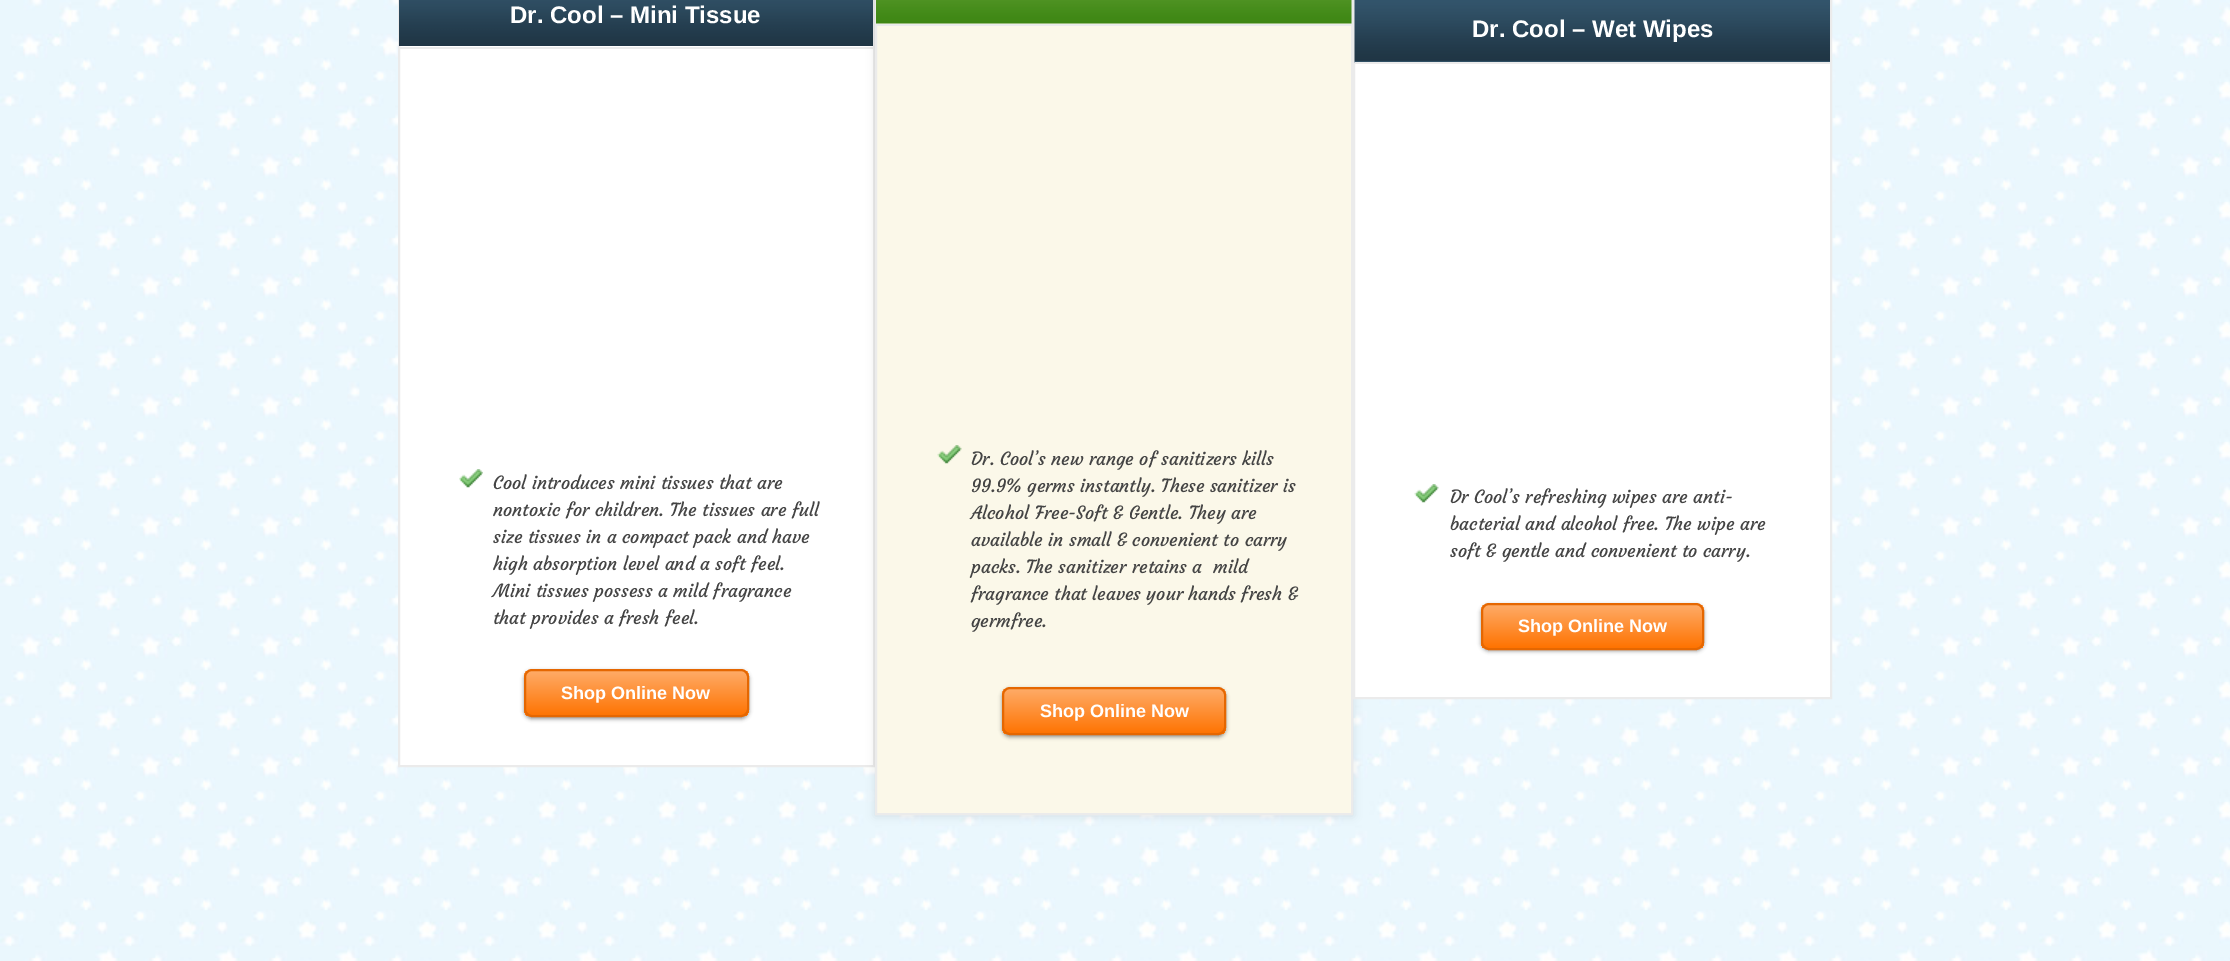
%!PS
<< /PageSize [2230 961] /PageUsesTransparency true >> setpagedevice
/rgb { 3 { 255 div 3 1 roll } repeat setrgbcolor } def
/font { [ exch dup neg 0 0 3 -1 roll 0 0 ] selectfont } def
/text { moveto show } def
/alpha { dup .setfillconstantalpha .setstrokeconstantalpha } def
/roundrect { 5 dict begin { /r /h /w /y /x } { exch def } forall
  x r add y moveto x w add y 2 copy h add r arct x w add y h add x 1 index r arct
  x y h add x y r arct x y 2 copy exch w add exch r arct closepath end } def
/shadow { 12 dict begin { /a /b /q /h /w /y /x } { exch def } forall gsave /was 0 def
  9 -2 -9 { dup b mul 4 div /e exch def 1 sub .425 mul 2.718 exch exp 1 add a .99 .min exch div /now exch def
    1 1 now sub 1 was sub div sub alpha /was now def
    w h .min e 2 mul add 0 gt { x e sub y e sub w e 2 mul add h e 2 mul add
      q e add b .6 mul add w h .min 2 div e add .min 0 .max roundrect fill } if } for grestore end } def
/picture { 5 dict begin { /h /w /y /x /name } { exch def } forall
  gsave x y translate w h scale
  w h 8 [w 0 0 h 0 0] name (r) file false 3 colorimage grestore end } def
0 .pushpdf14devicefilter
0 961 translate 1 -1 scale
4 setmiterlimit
255 255 255 rgb
0 0 2230 961 rectfill
(img_01.rgb) 0 0 2230 961 picture
400 46 473 719 rectfill
235 235 235 rgb
2 setlinewidth
399 -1 475 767 rectstroke
(img_02.rgb) 399 0 474 46 picture
399 47 474 2 rectfill
(img_03.rgb) 459 469 24 19 picture
0 0 0 rgb
524 671 225 48 8 2 0.4 shadow
gsave
524 669 225 48 8 roundrect clip newpath
gsave 524 671 moveto 225 0 rlineto 0 45 rlineto -225 0 rlineto closepath clip newpath
<< /ShadingType 2 /ColorSpace /DeviceRGB /Coords [525 671 525 716] /Extend [true true] /Function << /FunctionType 2 /Domain [0 1] /C0 [0.996 0.671 0.404] /C1 [0.996 0.451 0.004] /N 1 >> >> shfill grestore
grestore
229 103 1 rgb
525 670 223 46 7 roundrect stroke
0 0 0 rgb
875 -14 478 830 0 4.5 0.1 shadow
251 248 233 rgb
877 23 474 790 rectfill
235 235 235 rgb
876 -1 476 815 rectstroke
(img_04.rgb) 876 0 476 24 picture
876 24 476 2 rectfill
(img_05.rgb) 937 445 25 19 picture
0 0 0 rgb
1002 689 224 48 8 2 0.4 shadow
gsave
1002 687 224 48 8 roundrect clip newpath
gsave 1002 689 moveto 224 0 rlineto 0 45 rlineto -224 0 rlineto closepath clip newpath
<< /ShadingType 2 /ColorSpace /DeviceRGB /Coords [1004 689 1004 734] /Extend [true true] /Function << /FunctionType 2 /Domain [0 1] /C0 [0.996 0.671 0.404] /C1 [0.996 0.451 0.004] /N 1 >> >> shfill grestore
grestore
229 103 1 rgb
1003 688 222 46 7 roundrect stroke
255 255 255 rgb
1355 64 475 633 rectfill
235 235 235 rgb
1354 -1 477 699 rectstroke
(img_06.rgb) 1354 0 476 63 picture
1355 62 475 2 rectfill
(img_07.rgb) 1414 484 25 19 picture
0 0 0 rgb
1481 605 223 46 8 2 0.4 shadow
gsave
1481 603 223 47 8 roundrect clip newpath
gsave 1481 605 moveto 223 0 rlineto 0 43 rlineto -223 0 rlineto closepath clip newpath
<< /ShadingType 2 /ColorSpace /DeviceRGB /Coords [1482 605 1482 648] /Extend [true true] /Function << /FunctionType 2 /Domain [0 1] /C0 [0.996 0.671 0.404] /C1 [0.996 0.451 0.004] /N 1 >> >> shfill grestore
grestore
229 103 1 rgb
1482 604 221 45 7 roundrect stroke
/LiberationSans-Bold 24 font
255 255 255 rgb
(Dr. Cool – Mini Tissue) 510 23 text
/Courgette-Regular 18 font
68 68 68 rgb
(Cool introduces mini tissues that are) 493 489 text
(nontoxic for children. The tissues are full) 493 516 text
(size tissues in a compact pack and have) 493 543 text
(high absorption level and a soft feel.) 493 570 text
(Mini tissues possess a mild fragrance) 493 597 text
(that provides a fresh feel.) 493 624 text
/LiberationSans-Bold 18 font
255 255 255 rgb
(Shop Online Now) 561 699 text
/Courgette-Regular 18 font
68 68 68 rgb
(Dr. Cool’s new range of sanitizers kills) 971 465 text
(99.9% germs instantly. These sanitizer is) 971 492 text
(Alcohol Free-Soft & Gentle. They are) 971 519 text
(available in small & convenient to carry) 971 546 text
(packs. The sanitizer retains a  mild) 971 573 text
(fragrance that leaves your hands fresh &) 971 600 text
(germfree.) 971 627 text
/LiberationSans-Bold 18 font
255 255 255 rgb
(Shop Online Now) 1040 717 text
/LiberationSans-Bold 24 font
(Dr. Cool – Wet Wipes) 1472 37 text
/Courgette-Regular 18 font
68 68 68 rgb
(Dr Cool’s refreshing wipes are anti-) 1450 503 text
(bacterial and alcohol free. The wipe are) 1450 530 text
(soft & gentle and convenient to carry.) 1450 557 text
/LiberationSans-Bold 18 font
255 255 255 rgb
(Shop Online Now) 1518 632 text
.poppdf14devicefilter showpage
